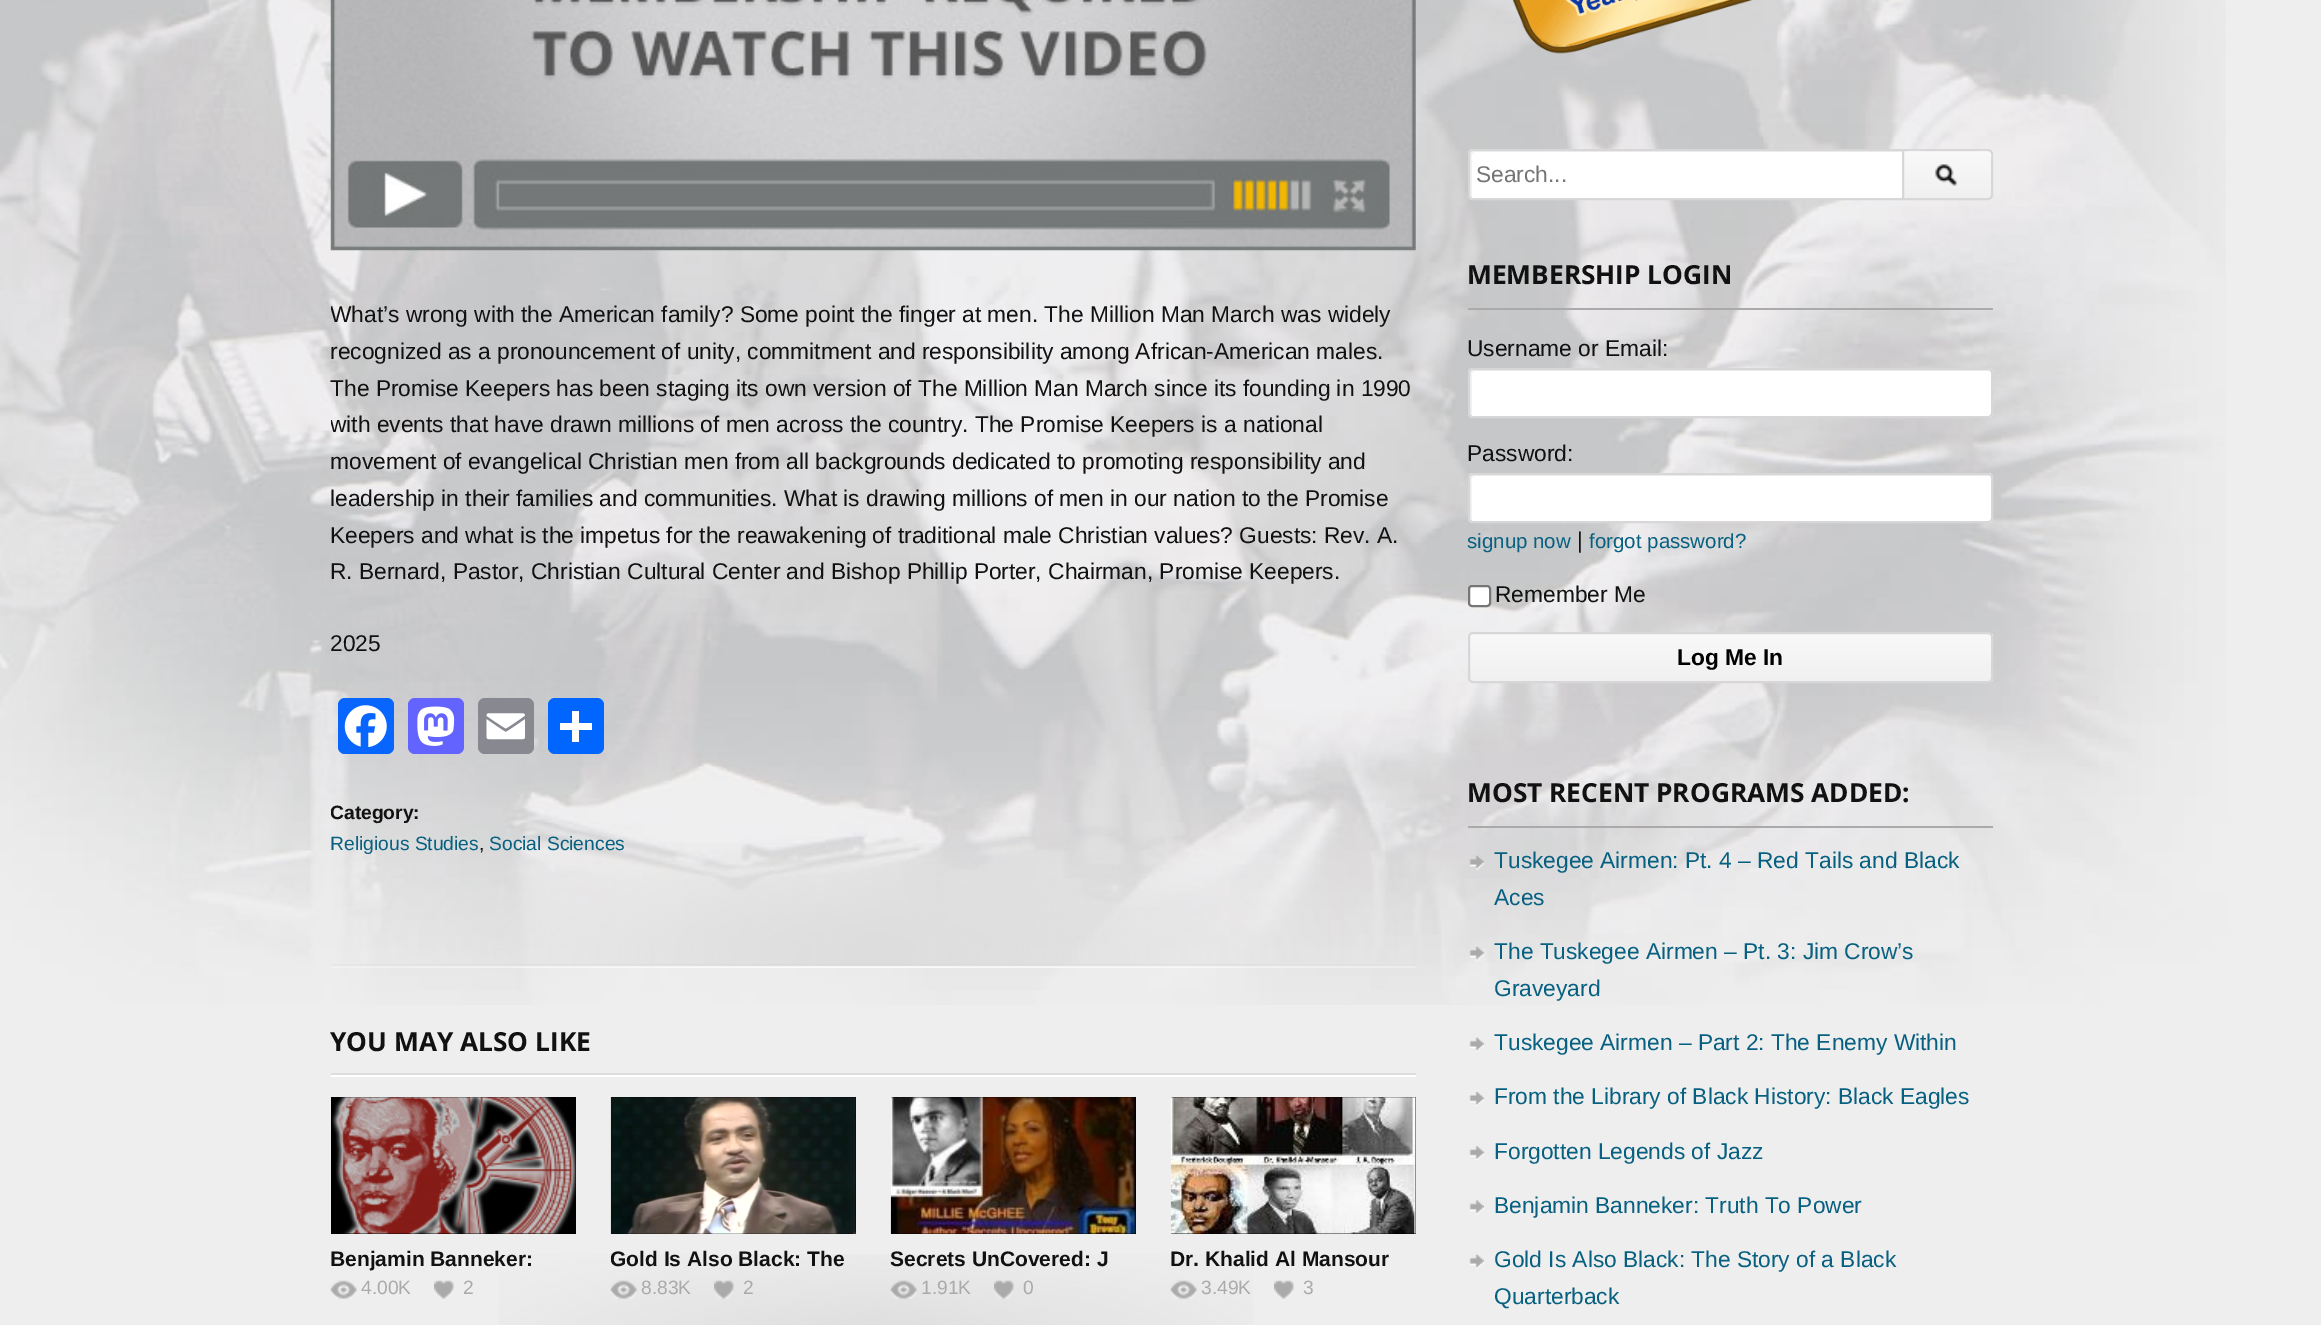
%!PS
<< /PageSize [2321 1325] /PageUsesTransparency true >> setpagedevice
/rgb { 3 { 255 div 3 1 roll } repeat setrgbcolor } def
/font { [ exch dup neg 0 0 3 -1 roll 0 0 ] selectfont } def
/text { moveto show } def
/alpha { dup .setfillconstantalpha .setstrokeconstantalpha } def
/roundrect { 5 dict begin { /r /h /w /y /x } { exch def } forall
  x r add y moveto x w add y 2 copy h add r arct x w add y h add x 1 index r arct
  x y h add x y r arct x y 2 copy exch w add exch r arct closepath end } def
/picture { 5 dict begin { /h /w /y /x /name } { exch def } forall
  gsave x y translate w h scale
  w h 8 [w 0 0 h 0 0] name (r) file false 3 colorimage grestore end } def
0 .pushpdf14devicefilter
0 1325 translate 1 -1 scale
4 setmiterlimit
238 238 238 rgb
0 0 2321 1325 rectfill
(img_01.rgb) 0 0 2226 1005 picture
(img_02.rgb) 330 0 1086 251 picture
(img_03.rgb) 331 843 1085 125 picture
8 102 255 rgb
338 698 56 56 7 roundrect fill
(img_04.rgb) 344 705 43 43 picture
99 100 255 rgb
408 698 56 56 7 roundrect fill
(img_05.rgb) 417 706 38 40 picture
136 137 144 rgb
478 698 56 56 7 roundrect fill
(img_06.rgb) 486 713 39 27 picture
1 102 255 rgb
548 698 56 56 7 roundrect fill
255 255 255 rgb
572 711 7 31 rectfill
560 723 32 7 rectfill
331 1075 1085 2 rectfill
221 221 221 rgb
331 1073 1085 2 rectfill
(img_07.rgb) 499 1254 754 71 picture
0 0 0 rgb
331 1097 245 137 rectfill
(img_08.rgb) 332 1097 244 137 picture
(img_09.rgb) 330 1280 27 19 picture
(img_10.rgb) 434 1280 20 19 picture
611 1097 245 137 rectfill
(img_11.rgb) 610 1097 246 137 picture
(img_12.rgb) 610 1280 27 19 picture
(img_13.rgb) 714 1280 20 19 picture
891 1097 245 137 rectfill
(img_14.rgb) 890 1097 246 137 picture
(img_15.rgb) 890 1280 27 19 picture
(img_16.rgb) 994 1280 20 19 picture
1171 1097 245 137 rectfill
(img_17.rgb) 1170 1097 246 137 picture
(img_18.rgb) 1170 1280 27 19 picture
(img_19.rgb) 1274 1280 20 19 picture
(img_20.rgb) 1512 0 240 54 picture
255 255 255 rgb
1468 149 438 51 5 roundrect fill
242 242 242 rgb
1475 152 moveto 428 0 rlineto -1 -1 -2 -1 -3 -1 rcurveto -426 0 rlineto -2 0 -4 2 -4 4 rcurveto 0 39 rlineto 0 2 1 3 2 4 rcurveto 0 -35 rlineto 0 -2 -2 -11 3 -11 rcurveto closepath fill
215 215 215 rgb
2 setlinewidth
1469 150 436 49 4 roundrect stroke
gsave
1902 149 moveto 86 0 rlineto 3 0 5 2 5 5 rcurveto 0 41 rlineto 0 3 -2 5 -5 5 rcurveto -86 0 rlineto closepath clip newpath
gsave 1904 151 moveto 89 0 rlineto 0 47 rlineto -89 0 rlineto closepath clip newpath
<< /ShadingType 2 /ColorSpace /DeviceRGB /Coords [1948 151 1948 198] /Extend [true true] /Function << /FunctionType 2 /Domain [0 1] /C0 [0.976 0.976 0.976] /C1 [0.941 0.941 0.941] /N 1 >> >> shfill grestore
grestore
1903 150 moveto 85 0 rlineto 2 0 4 2 4 4 rcurveto 0 41 rlineto 0 2 -2 4 -4 4 rcurveto -85 0 rlineto closepath stroke
(img_21.rgb) 1935 164 22 22 picture
0.25 alpha
255 255 255 rgb
1909 152 moveto -3 0 -5 3 -5 6 rcurveto 0 -10 10 -7 18 -7 rcurveto 52 0 rlineto 8 0 18 -3 18 7 rcurveto 0 -3 -3 -6 -6 -6 rcurveto closepath fill
1 alpha
170 170 170 rgb
1468 308 525 2 rectfill
255 255 255 rgb
1468 368 525 50 5 roundrect fill
242 242 242 rgb
1475 371 moveto 515 0 rlineto 2 1 rlineto -1 -2 -2 -3 -4 -3 rcurveto -514 0 rlineto -2 0 -4 2 -4 4 rcurveto 0 40 rlineto 0 2 1 3 2 4 rcurveto 0 -36 rlineto 0 -2 -2 -10 3 -10 rcurveto closepath fill
215 215 215 rgb
1469 369 523 48 4 roundrect stroke
255 255 255 rgb
1468 473 525 50 5 roundrect fill
242 242 242 rgb
1475 476 moveto 515 0 rlineto 2 1 rlineto -1 -2 -2 -3 -4 -3 rcurveto -514 0 rlineto -2 0 -4 2 -4 4 rcurveto 0 40 rlineto 0 2 1 3 2 4 rcurveto 0 -35 rlineto 0 -2 -2 -11 3 -11 rcurveto closepath fill
215 215 215 rgb
1469 474 523 48 4 roundrect stroke
255 255 255 rgb
1469 586 21 20 3 roundrect gsave fill grestore
118 118 118 rgb
stroke
gsave
1468 632 525 51 5 roundrect clip newpath
gsave 1468 634 moveto 525 0 rlineto 0 47 rlineto -525 0 rlineto closepath clip newpath
<< /ShadingType 2 /ColorSpace /DeviceRGB /Coords [1731 634 1731 681] /Extend [true true] /Function << /FunctionType 2 /Domain [0 1] /C0 [0.976 0.976 0.976] /C1 [0.941 0.941 0.941] /N 1 >> >> shfill grestore
grestore
215 215 215 rgb
1469 633 523 49 4 roundrect stroke
170 170 170 rgb
1468 826 525 2 rectfill
(img_22.rgb) 1469 855 15 15 picture
(img_23.rgb) 1469 946 15 15 picture
(img_24.rgb) 1469 1037 15 15 picture
(img_25.rgb) 1469 1092 15 14 picture
(img_26.rgb) 1469 1146 15 15 picture
(img_27.rgb) 1469 1200 15 15 picture
(img_28.rgb) 1469 1254 15 15 picture
gsave
331 298 1085 493 rectclip
/LiberationSans-Regular 22.75 font
17 17 17 rgb
(What’s wrong with the American family? Some point the finger at men. The Million Man March was widely) 330 322 text
grestore
/LiberationSans-Regular 22.75 font
17 17 17 rgb
(recognized as a pronouncement of unity, commitment and responsibility among African-American males.) 330 359 text
(The Promise Keepers has been staging its own version of The Million Man March since its founding in 1990) 330 396 text
gsave
331 298 1085 493 rectclip
(with events that have drawn millions of men across the country. The Promise Keepers is a national) 330 432 text
grestore
(movement of evangelical Christian men from all backgrounds dedicated to promoting responsibility and) 330 469 text
(leadership in their families and communities. What is drawing millions of men in our nation to the Promise) 330 506 text
(Keepers and what is the impetus for the reawakening of traditional male Christian values? Guests: Rev. A.) 330 543 text
(R. Bernard, Pastor, Christian Cultural Center and Bishop Phillip Porter, Chairman, Promise Keepers.) 330 579 text
(2025) 330 651 text
gsave
331 298 1085 635 rectclip
/LiberationSans-Bold 19.25 font
(Category:) 330 819 text
grestore
/LiberationSans-Regular 19.25 font
8 96 129 rgb
(Religious Studies) 330 850 text
17 17 17 rgb
(,) 479 850 text
8 96 129 rgb
(Social Sciences) 489 850 text
/OpenSans-Bold 26.25 font
17 17 17 rgb
(YOU MAY ALSO LIKE) 330 1051 text
/LiberationSans-Bold 21 font
(Benjamin Banneker:) 330 1266 text
/LiberationSans-Regular 19.25 font
170 170 170 rgb
(4.00K) 361 1294 text
(2) 463 1294 text
gsave
611 1243 245 35 rectclip
/LiberationSans-Bold 21 font
17 17 17 rgb
(Gold Is Also Black:) 610 1266 text
grestore
/LiberationSans-Bold 21 font
17 17 17 rgb
(The) 807 1266 text
/LiberationSans-Regular 19.25 font
170 170 170 rgb
(8.83K) 641 1294 text
(2) 743 1294 text
/LiberationSans-Bold 21 font
17 17 17 rgb
(Secrets UnCovered: J) 890 1266 text
/LiberationSans-Regular 19.25 font
170 170 170 rgb
(1.91K) 921 1294 text
(0) 1023 1294 text
/LiberationSans-Bold 21 font
17 17 17 rgb
(Dr. Khalid Al Mansour) 1170 1266 text
/LiberationSans-Regular 19.25 font
170 170 170 rgb
(3.49K) 1201 1294 text
(3) 1303 1294 text
/LiberationSans-Regular 22.75 font
117 117 117 rgb
(Search...) 1476 182 text
/OpenSans-Bold 26.25 font
17 17 17 rgb
(MEMBERSHIP LOGIN) 1467 284 text
/LiberationSans-Regular 22.75 font
(Username or Email:) 1467 356 text
(Password:) 1467 461 text
/LiberationSans-Regular 20.5 font
8 96 129 rgb
(signup now) 1467 548 text
/LiberationSans-Regular 22.75 font
17 17 17 rgb
(|) 1577 548 text
/LiberationSans-Regular 20.5 font
8 96 129 rgb
(forgot password?) 1589 548 text
/LiberationSans-Regular 22.75 font
17 17 17 rgb
(Remember Me) 1495 602 text
/LiberationSans-Bold 22.75 font
0 0 0 rgb
(Log Me In) 1677 665 text
/OpenSans-Bold 26.25 font
17 17 17 rgb
(MOST RECENT PROGRAMS ADDED:) 1467 802 text
/LiberationSans-Regular 22.75 font
8 96 129 rgb
(Tuskegee Airmen: Pt. 4 – Red Tails and Black) 1494 868 text
(Aces) 1494 905 text
(The Tuskegee Airmen – Pt. 3: Jim Crow’s) 1494 959 text
(Graveyard) 1494 996 text
(Tuskegee Airmen – Part 2: The Enemy Within) 1494 1050 text
(From the Library of Black History: Black Eagles) 1494 1104 text
(Forgotten Legends of Jazz) 1494 1159 text
(Benjamin Banneker: Truth To Power) 1494 1213 text
(Gold Is Also Black: The Story of a Black) 1494 1267 text
(Quarterback) 1494 1304 text
.poppdf14devicefilter showpage
